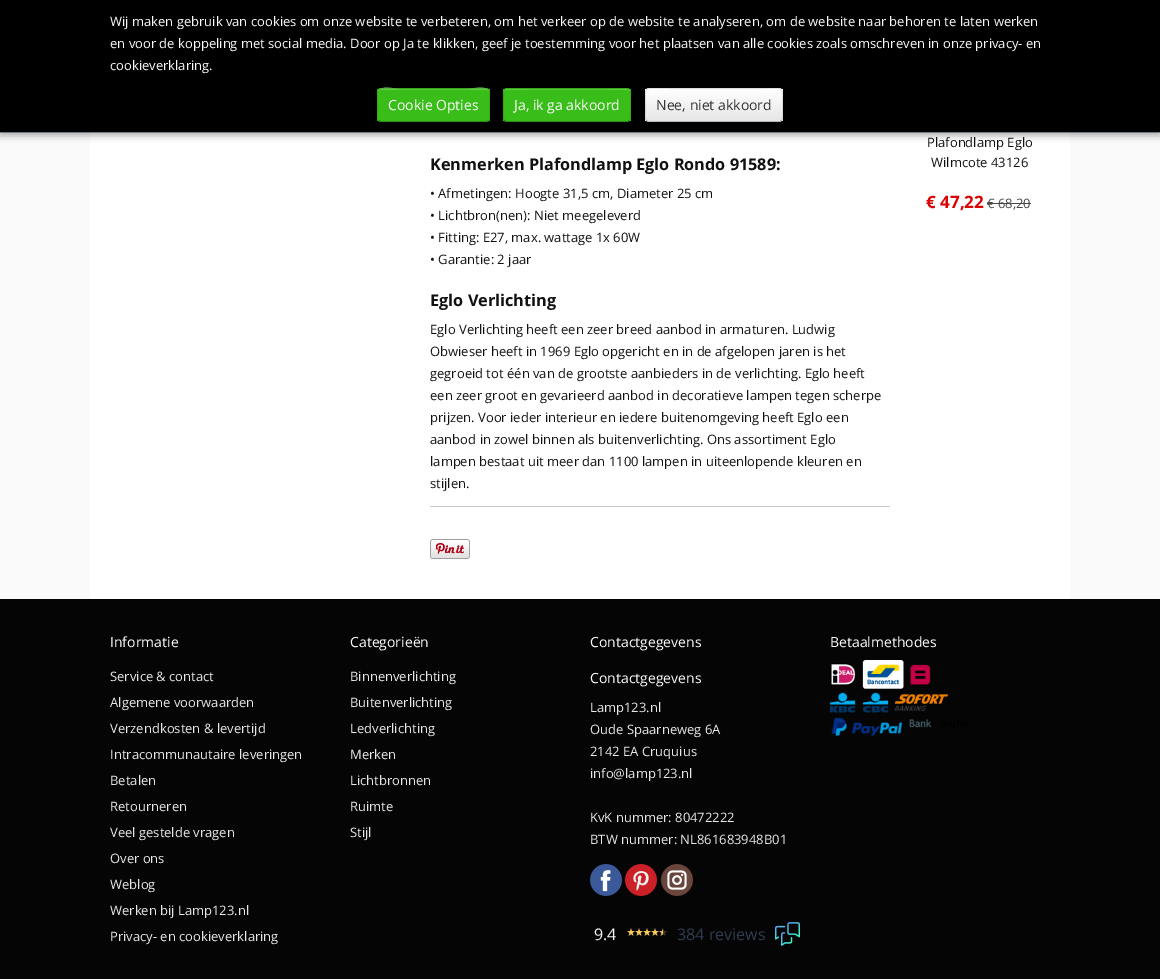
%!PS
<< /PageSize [1160 979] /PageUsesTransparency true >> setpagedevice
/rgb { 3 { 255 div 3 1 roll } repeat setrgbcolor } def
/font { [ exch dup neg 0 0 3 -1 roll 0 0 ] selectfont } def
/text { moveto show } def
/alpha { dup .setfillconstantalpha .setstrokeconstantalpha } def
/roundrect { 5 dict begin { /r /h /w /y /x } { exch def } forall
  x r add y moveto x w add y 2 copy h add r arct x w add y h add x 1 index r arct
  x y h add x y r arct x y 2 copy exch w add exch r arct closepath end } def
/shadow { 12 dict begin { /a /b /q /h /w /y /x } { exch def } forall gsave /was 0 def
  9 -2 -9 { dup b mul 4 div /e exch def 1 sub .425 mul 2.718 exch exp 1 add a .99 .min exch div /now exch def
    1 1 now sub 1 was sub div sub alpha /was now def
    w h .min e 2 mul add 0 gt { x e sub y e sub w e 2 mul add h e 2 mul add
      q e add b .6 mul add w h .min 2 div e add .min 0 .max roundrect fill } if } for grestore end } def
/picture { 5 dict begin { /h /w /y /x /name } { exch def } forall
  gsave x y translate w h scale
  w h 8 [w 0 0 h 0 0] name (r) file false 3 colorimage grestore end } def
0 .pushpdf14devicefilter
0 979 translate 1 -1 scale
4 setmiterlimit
250 250 250 rgb
0 0 1160 979 rectfill
255 255 255 rgb
90 133 980 466 rectfill
0 0 0 rgb
0 3 1160 133 0 3.5 0.3 shadow
0 0 1160 132 rectfill
105 126 135 rgb
0 132 1160 1 rectfill
57 189 25 rgb
377 88 113 34 4 roundrect fill
gsave
377 88 113 34 4 roundrect clip newpath
377 89 113 32 rectfill
grestore
97 202 71 rgb
381 90 moveto 105 0 rlineto 2 0 3 1 3 3 rcurveto 0 -9 -18 -4 -21 -4 rcurveto -70 0 rlineto -2 0 -20 -5 -20 4 rcurveto 0 -2 1 -3 3 -3 rcurveto closepath fill
0.25 alpha
0 0 0 rgb
488.5 120.5 moveto -2 1 rlineto -88 0 rlineto -17.5 0 rlineto -2.5 -1 rlineto stroke
0.1 alpha
378.5 120.5 moveto -2.5 -2.5 -1 -8.5 -1 -11 rcurveto 0 -25 -4.5 -21 21 -21 rcurveto 70 0 rlineto 25.5 0 21 -4 21 21 rcurveto 0 2.5 1.5 8.5 -1 11 rcurveto stroke
1 alpha
57 189 25 rgb
503 88 128 34 4 roundrect fill
gsave
503 88 128 34 4 roundrect clip newpath
503 89 128 32 rectfill
grestore
97 202 71 rgb
507 90 moveto 120 0 rlineto 2 0 3 1 3 3 rcurveto 0 -2 0 -4 -2 -4 rcurveto -121 0 rlineto -2 0 -3 2 -3 4 rcurveto 0 -2 1 -3 3 -3 rcurveto closepath fill
0.25 alpha
0 0 0 rgb
629.5 120.5 moveto -0.5 0.5 -1.5 1 -2.5 1 rcurveto -120 0 rlineto -1 0 -2 -0.5 -2.5 -1 rcurveto stroke
0.1 alpha
504.5 120.5 moveto -2 -2.5 -1 -12.5 -1 -15.5 rcurveto 0 -21.5 -2 -16.5 23.5 -16.5 rcurveto 80 0 rlineto 25.5 0 23.5 -5 23.5 16.5 rcurveto 0 3 1 13 -1 15.5 rcurveto stroke
1 alpha
245 245 245 rgb
645 88 138 34 4 roundrect fill
gsave
645 88 138 34 4 roundrect clip newpath
gsave 645 89 moveto 138 0 rlineto 0 32 rlineto -138 0 rlineto closepath clip newpath
<< /ShadingType 2 /ColorSpace /DeviceRGB /Coords [714 89 714 121] /Extend [true true] /Function << /FunctionType 2 /Domain [0 1] /C0 [1 1 1] /C1 [0.902 0.902 0.902] /N 1 >> >> shfill grestore
grestore
0.25 alpha
0 0 0 rgb
781.5 120.5 moveto -0.5 0.5 -1.5 1 -2.5 1 rcurveto -130 0 rlineto -1 0 -2 -0.5 -2.5 -1 rcurveto stroke
0.1 alpha
646.5 120.5 moveto -2.5 -2.5 -1 -8.5 -1 -11 rcurveto 0 -26.5 -4 -21 25 -21 rcurveto 87 0 rlineto 29 0 25 -5.5 25 21 rcurveto 0 2.5 1.5 8.5 -1 11 rcurveto stroke
1 alpha
204 204 204 rgb
430 506 460 1 rectfill
(img_01.rgb) 430 539 40 20 picture
71 71 71 rgb
987 203 44 1 rectfill
5 5 5 rgb
0 599 1160 380 rectfill
(img_02.rgb) 590 864 32 32 picture
(img_03.rgb) 625 864 32 32 picture
(img_04.rgb) 661 864 32 32 picture
(img_05.rgb) 627 928 8 8 picture
(img_05.rgb) 635 928 8 8 picture
(img_05.rgb) 643 928 8 8 picture
(img_05.rgb) 651 928 8 8 picture
(img_06.rgb) 659 928 8 8 picture
(img_07.rgb) 775 922 25 24 picture
(img_08.rgb) 830 663 26 23 picture
(img_09.rgb) 862 660 42 29 picture
(img_10.rgb) 910 664 21 21 picture
(img_11.rgb) 830 692 59 21 picture
(img_12.rgb) 894 694 55 17 picture
(img_13.rgb) 831 717 72 20 picture
(img_14.rgb) 909 719 59 9 picture
/OpenSans-Regular 13 font
252 252 252 rgb
(Wij maken gebruik van cookies om onze website te verbeteren, om het verkeer op de website te analyseren, om de website naar behoren te laten werken) 110 26 text
(en voor de koppeling met social media. Door op Ja te klikken, geef je toestemming voor het plaatsen van alle cookies zoals omschreven in onze privacy- en) 110 48 text
(cookieverklaring.) 110 70 text
/OpenSans-Regular 14 font
(Cookie Opties) 388 110 text
(Ja, ik ga akkoord) 514 110 text
51 51 51 rgb
(Nee, niet akkoord) 656 110 text
/OpenSans-Bold 16.25 font
17 17 17 rgb
(Kenmerken Plafondlamp Eglo Rondo 91589:) 430 170 text
/OpenSans-Regular 13 font
(• Afmetingen: Hoogte 31,5 cm, Diameter 25 cm) 430 198 text
(• Lichtbron\(nen\): Niet meegeleverd) 430 220 text
(• Fitting: E27, max. wattage 1x 60W) 430 242 text
(• Garantie: 2 jaar) 430 264 text
/OpenSans-Bold 16.25 font
(Eglo Verlichting) 430 306 text
/OpenSans-Regular 13 font
(Eglo Verlichting heeft een zeer breed aanbod in armaturen. Ludwig) 430 334 text
(Obwieser heeft in 1969 Eglo opgericht en in de afgelopen jaren is het) 430 356 text
(gegroeid tot één van de grootste aanbieders in de verlichting. Eglo heeft) 430 378 text
(een zeer groot en gevarieerd aanbod in decoratieve lampen tegen scherpe) 430 400 text
(prijzen. Voor ieder interieur en iedere buitenomgeving heeft Eglo een) 430 422 text
(aanbod in zowel binnen als buitenverlichting. Ons assortiment Eglo) 430 444 text
(lampen bestaat uit meer dan 1100 lampen in uiteenlopende kleuren en) 430 466 text
(stijlen.) 430 488 text
(Plafondlamp Eglo) 927 147 text
(Wilmcote 43126) 931 167 text
/OpenSans-Bold 17 font
218 2 2 rgb
(€ 47,22) 926 208 text
/OpenSans-Regular 13 font
71 71 71 rgb
(€ 68,20) 987 208 text
/OpenSans-Regular 14 font
252 252 252 rgb
(Informatie) 110 647 text
/OpenSans-Regular 13 font
232 232 232 rgb
(Service & contact) 110 681 text
(Algemene voorwaarden) 110 707 text
(Verzendkosten & levertijd) 110 733 text
(Intracommunautaire leveringen) 110 759 text
(Betalen) 110 785 text
(Retourneren) 110 811 text
(Veel gestelde vragen) 110 837 text
(Over ons) 110 863 text
(Weblog) 110 889 text
(Werken bij Lamp123.nl) 110 915 text
(Privacy- en cookieverklaring) 110 941 text
/OpenSans-Regular 14 font
252 252 252 rgb
(Categorieën) 350 647 text
/OpenSans-Regular 13 font
232 232 232 rgb
(Binnenverlichting) 350 681 text
(Buitenverlichting) 350 707 text
(Ledverlichting) 350 733 text
(Merken) 350 759 text
(Lichtbronnen) 350 785 text
(Ruimte) 350 811 text
(Stijl) 350 837 text
/OpenSans-Regular 14 font
252 252 252 rgb
(Contactgegevens) 590 647 text
(Contactgegevens) 590 683 text
/OpenSans-Regular 13 font
232 232 232 rgb
(Lamp123.nl) 590 712 text
(Oude Spaarneweg 6A) 590 734 text
(2142 EA Cruquius) 590 756 text
(info@lamp123.nl) 590 778 text
(KvK nummer: 80472222) 590 822 text
(BTW nummer: NL861683948B01) 590 844 text
/OpenSans-Regular 16 font
252 252 252 rgb
(9.4) 594 940 text
48 60 80 rgb
(384 reviews) 677 940 text
/OpenSans-Regular 14 font
252 252 252 rgb
(Betaalmethodes) 830 647 text
.poppdf14devicefilter showpage
